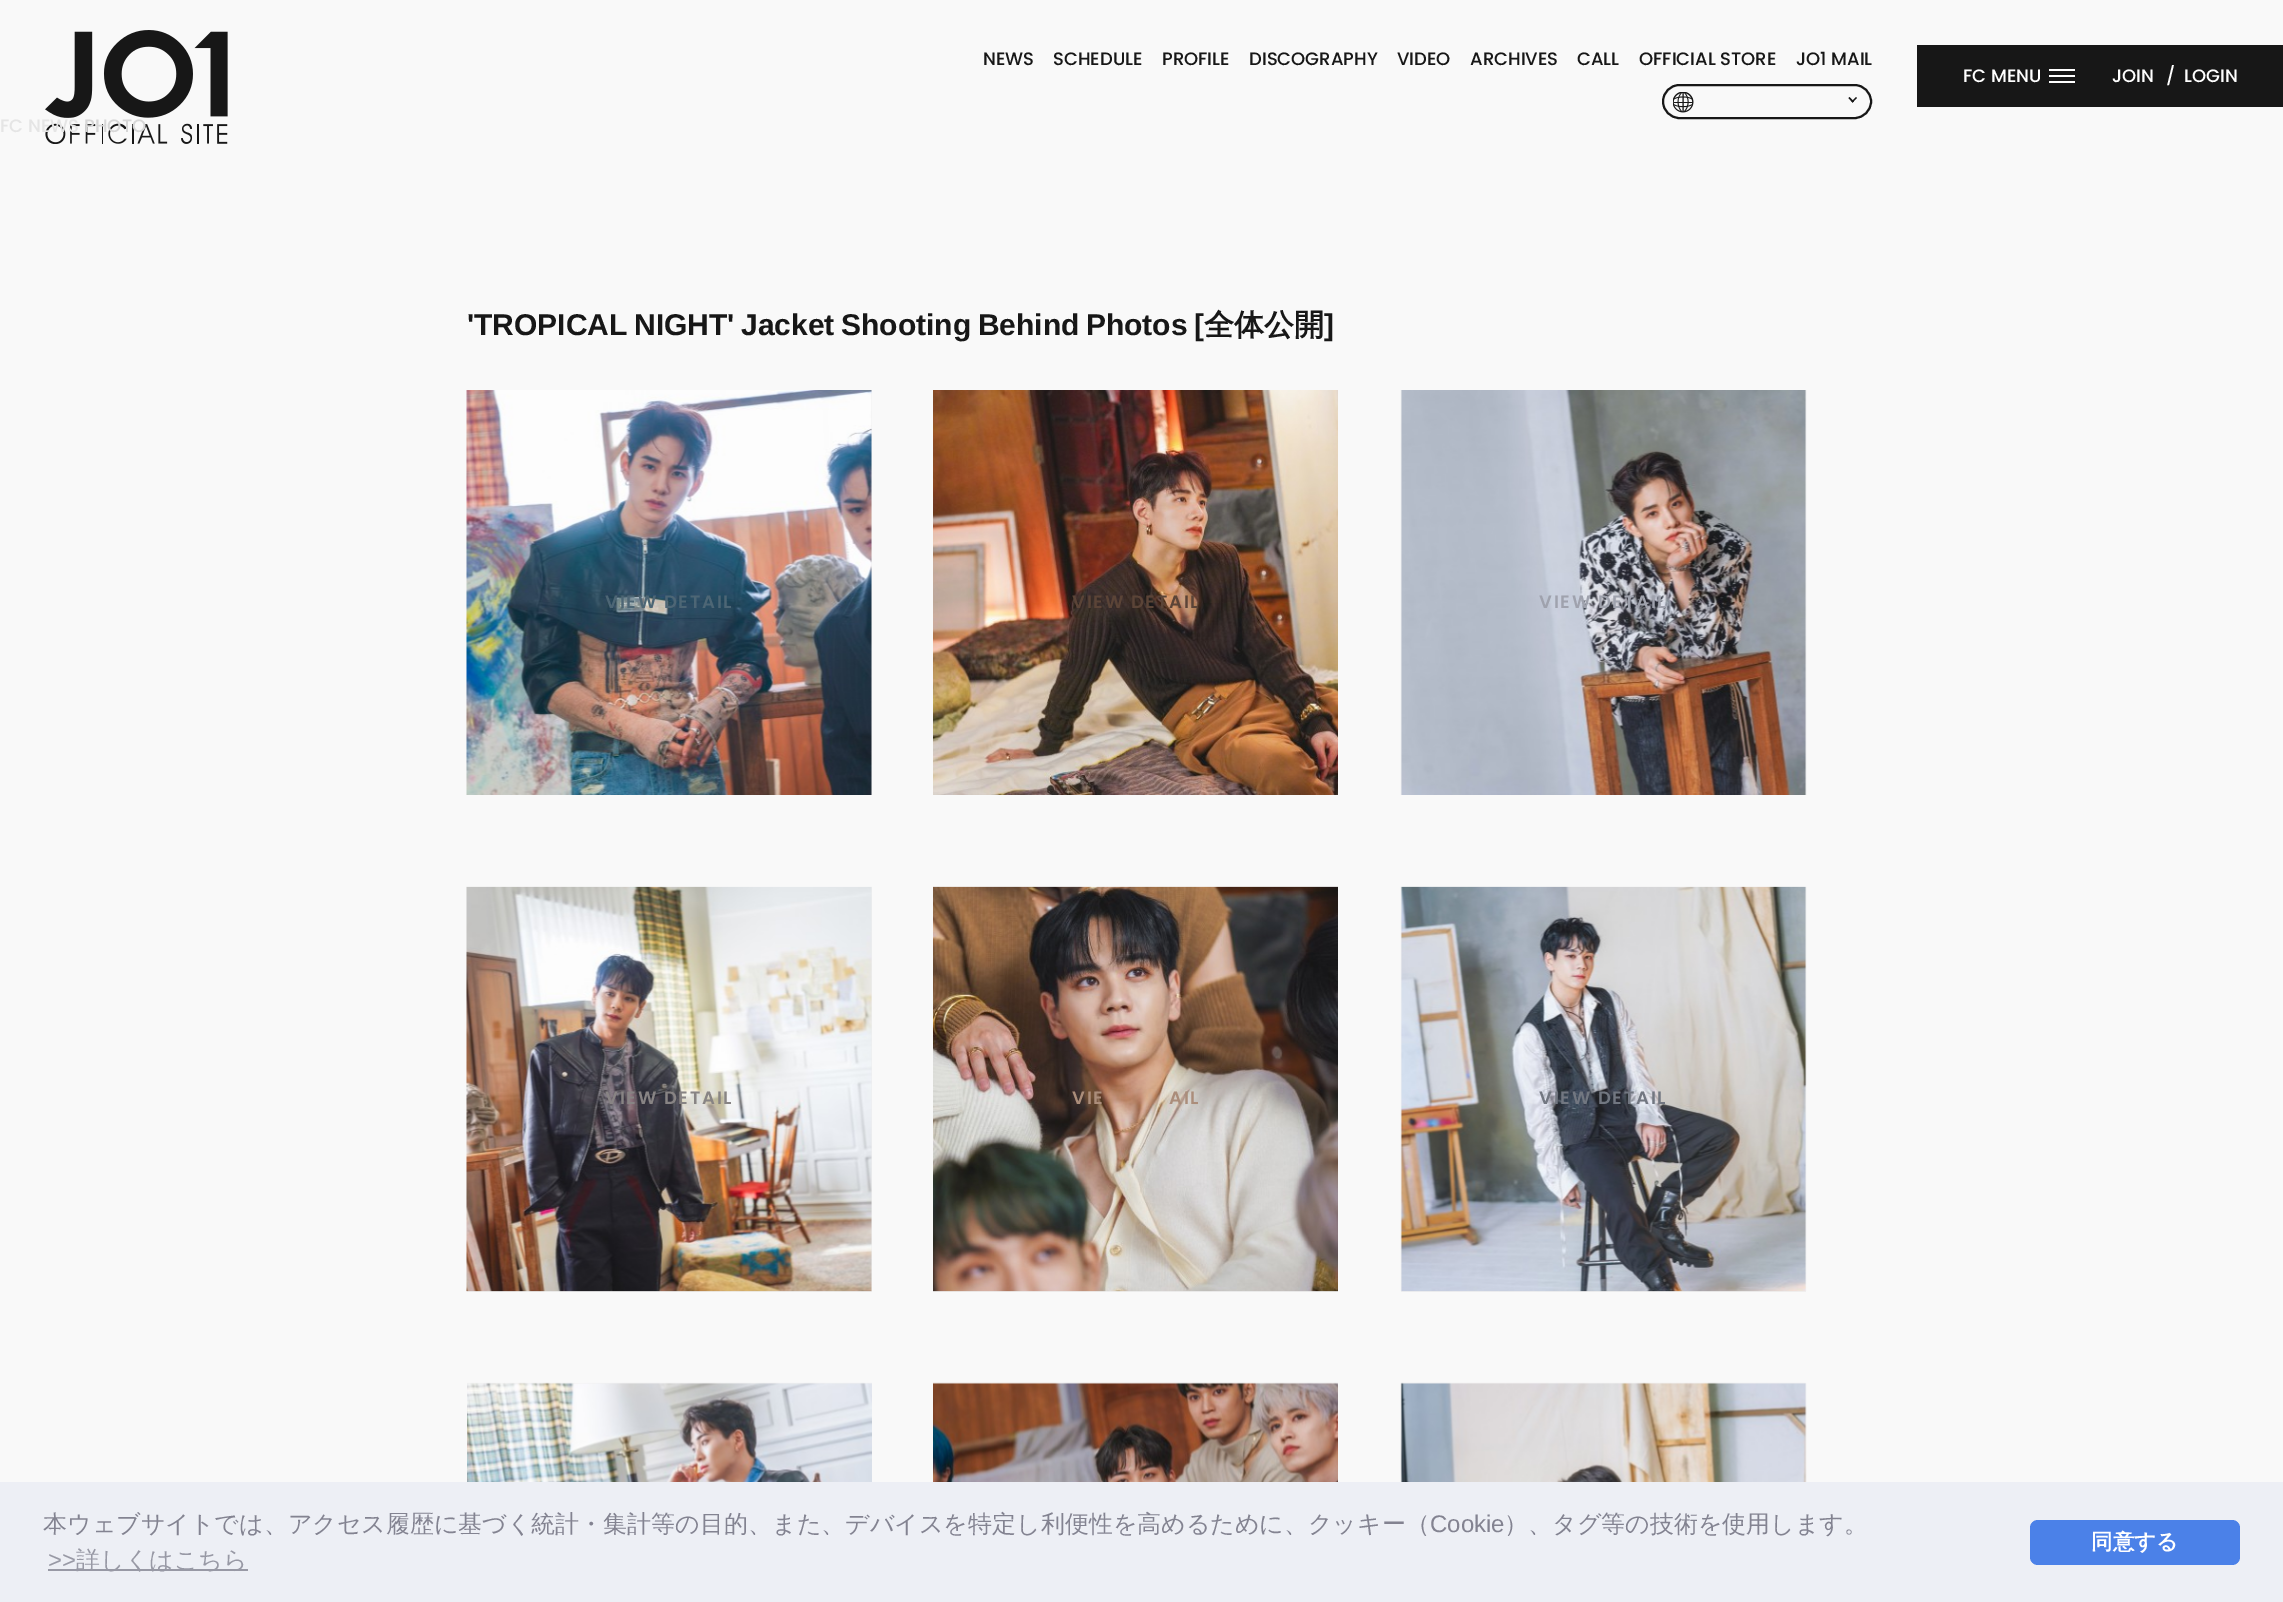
%!PS
<< /PageSize [2283 1602] >> setpagedevice
/rgb { 3 { 255 div 3 1 roll } repeat setrgbcolor } def
/font { [ exch dup neg 0 0 3 -1 roll 0 0 ] selectfont } def
/text { moveto show } def
/roundrect { 5 dict begin { /r /h /w /y /x } { exch def } forall
  x r add y moveto x w add y 2 copy h add r arct x w add y h add x 1 index r arct
  x y h add x y r arct x y 2 copy exch w add exch r arct closepath end } def
/picture { 5 dict begin { /h /w /y /x /name } { exch def } forall
  gsave x y translate w h scale
  w h 8 [w 0 0 h 0 0] name (r) file false 3 colorimage grestore end } def
0 1602 translate 1 -1 scale
4 setmiterlimit
249 249 249 rgb
0 0 2283 1602 rectfill
(img_01.rgb) 45 30 183 114 picture
23 23 23 rgb
2 setlinewidth
1663 85 208 33 16.5 roundrect stroke
(img_02.rgb) 1673 92 21 21 picture
1856 97 moveto 1 1 rlineto -4.5 4.5 rlineto -1 -1 rlineto closepath fill
1849.5 97 moveto 4.5 4.5 rlineto -1.5 1 rlineto -4 -4.5 rlineto closepath fill
1917 45 366 62 rectfill
255 255 255 rgb
2049 69 26 2 rectfill
2049 75 26 2 rectfill
2049 81 26 2 rectfill
239 239 239 rgb
871 390 1 405 rectfill
(img_03.rgb) 466 390 406 405 picture
(img_04.rgb) 933 390 405 405 picture
1401 390 405 405 rectfill
(img_05.rgb) 1400 390 407 405 picture
467 887 405 405 rectfill
(img_06.rgb) 466 886 406 406 picture
933 1291 405 1 rectfill
(img_07.rgb) 933 886 405 406 picture
1401 887 405 405 rectfill
(img_08.rgb) 1400 886 407 406 picture
467 1383 405 1 rectfill
(img_09.rgb) 467 1382 405 100 picture
933 1383 405 1 rectfill
(img_10.rgb) 933 1382 405 100 picture
1401 1383 405 99 rectfill
(img_11.rgb) 1400 1382 407 100 picture
237 239 245 rgb
0 1482 2283 120 rectfill
152 153 165 rgb
48 1569 200 2 rectfill
75 129 232 rgb
2030 1520 210 45 8 roundrect fill
/Poppins-Medium 18 font
23 23 23 rgb
(NEWS) 983 65 text
(SCHEDULE) 1053 65 text
(PROFILE) 1162 65 text
(DISCOGRAPHY) 1249 65 text
(VIDEO) 1397 65 text
(ARCHIVES) 1470 65 text
(CALL) 1577 65 text
(OFFICIAL STORE) 1639 65 text
(JO1 MAIL) 1796 65 text
255 255 255 rgb
(FC MENU) 1963 82 text
(JOIN) 2112 82 text
(/) 2166 82 text
(LOGIN) 2184 82 text
229 229 229 rgb
(FC NEWS) 0 132 text
215 215 215 rgb
(PHOTO) 84 132 text
/LiberationSans-Bold 30 font
23 23 23 rgb
467 335 moveto -1.75 0 32 ('TROPICAL NIGHT' Jacket Shooting Behind Photos [) widthshow
/WenQuanYiZenHei-Bold 30 font
(全体公開) 1204 335 text
/LiberationSans-Bold 30 font
(]) 1324 335 text
/Poppins-SemiBold 18 font
77 102 117 rgb
605 608 moveto 1.75 0 (VIEW DETAIL) ashow
91 68 55 rgb
1072 608 moveto 1.75 0 (VIEW DETAIL) ashow
159 162 173 rgb
1539 608 moveto 1.75 0 (VIEW DETAIL) ashow
136 132 132 rgb
605 1104 moveto 1.75 0 (VIEW DETAIL) ashow
171 141 122 rgb
1072 1104 moveto 1.75 0 (VIE) ashow
1169 1104 moveto 1.75 0 (AIL) ashow
114 119 129 rgb
1539 1104 moveto 1.75 0 (VIEW DETAIL) ashow
/WenQuanYiZenHei-Medium 24 font
131 131 145 rgb
(本ウェブサイトでは、アクセス履歴に基づく統計・集計等の目的、また、デバイスを特定し利便性を高めるために、クッキー（) 43 1532 text
/LiberationSans-Regular 24 font
(Cookie) 1430 1532 text
/WenQuanYiZenHei-Medium 24 font
(）、タグ等の技術を使用します。) 1504 1532 text
/LiberationSans-Regular 24 font
152 153 165 rgb
(>>) 48 1568 text
/WenQuanYiZenHei-Medium 24 font
(詳しくはこちら) 76 1568 text
/WenQuanYiZenHei-Bold 21.5 font
255 255 255 rgb
(同意する) 2091 1549 text
showpage
